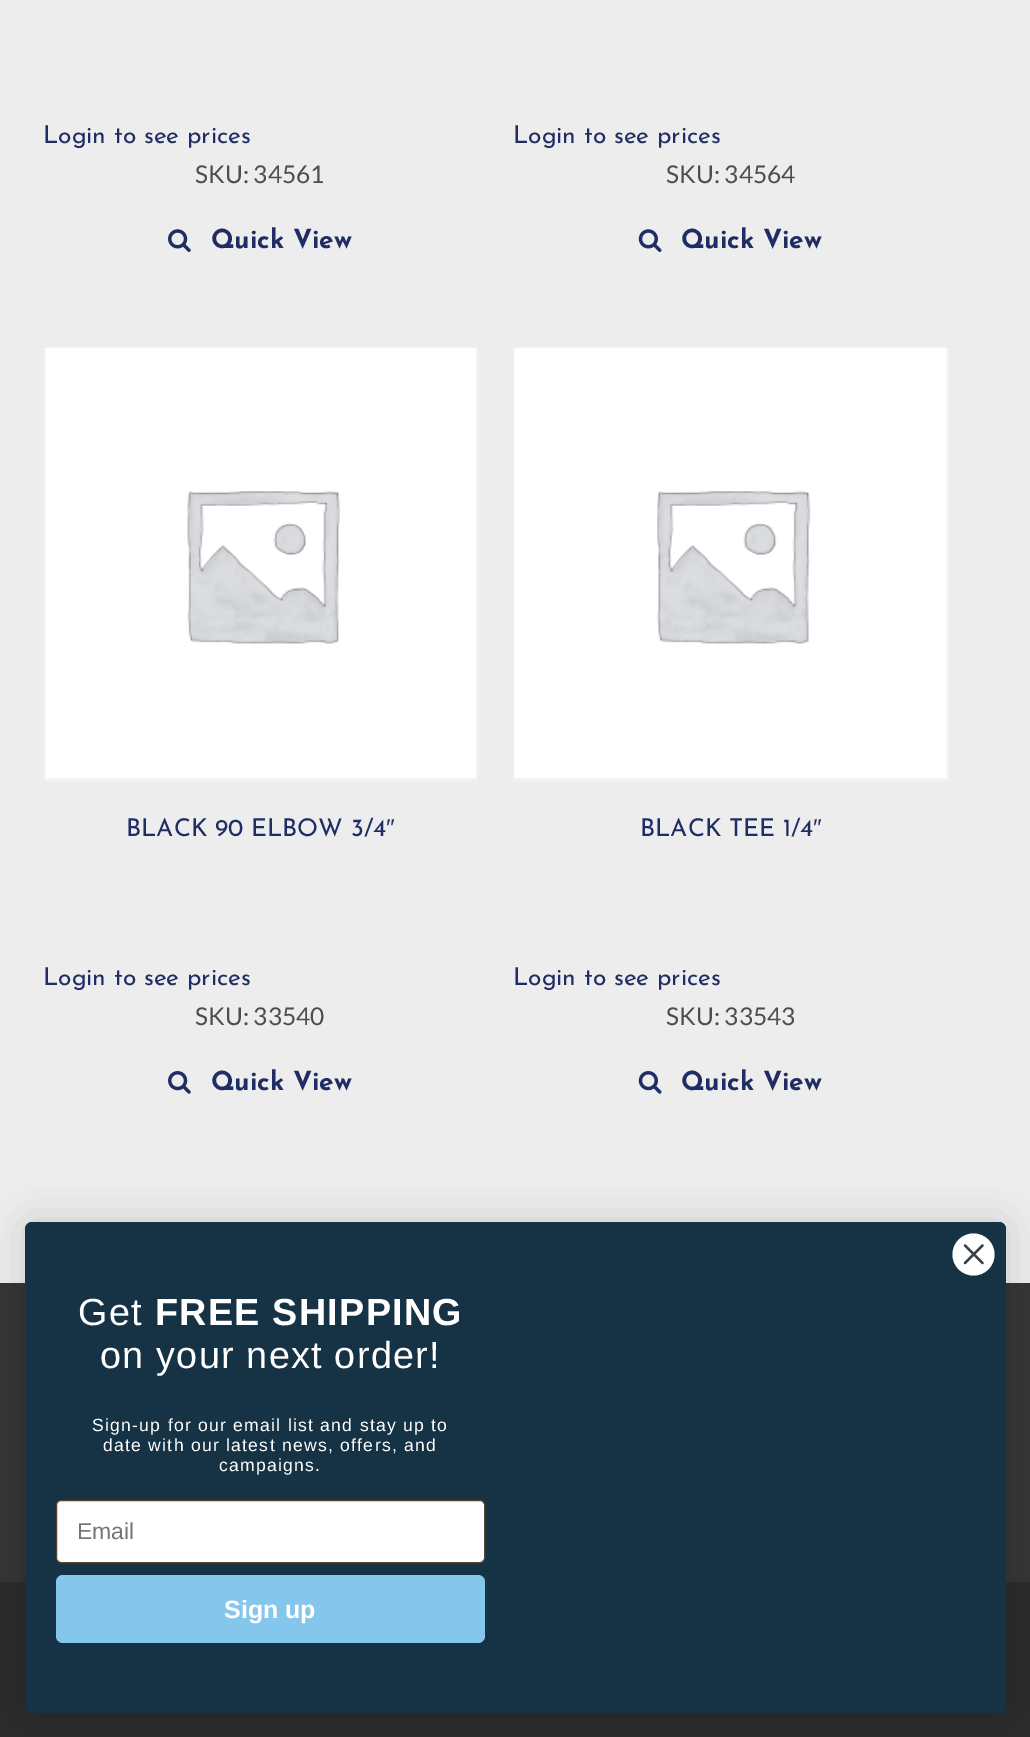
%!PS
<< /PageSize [1030 1737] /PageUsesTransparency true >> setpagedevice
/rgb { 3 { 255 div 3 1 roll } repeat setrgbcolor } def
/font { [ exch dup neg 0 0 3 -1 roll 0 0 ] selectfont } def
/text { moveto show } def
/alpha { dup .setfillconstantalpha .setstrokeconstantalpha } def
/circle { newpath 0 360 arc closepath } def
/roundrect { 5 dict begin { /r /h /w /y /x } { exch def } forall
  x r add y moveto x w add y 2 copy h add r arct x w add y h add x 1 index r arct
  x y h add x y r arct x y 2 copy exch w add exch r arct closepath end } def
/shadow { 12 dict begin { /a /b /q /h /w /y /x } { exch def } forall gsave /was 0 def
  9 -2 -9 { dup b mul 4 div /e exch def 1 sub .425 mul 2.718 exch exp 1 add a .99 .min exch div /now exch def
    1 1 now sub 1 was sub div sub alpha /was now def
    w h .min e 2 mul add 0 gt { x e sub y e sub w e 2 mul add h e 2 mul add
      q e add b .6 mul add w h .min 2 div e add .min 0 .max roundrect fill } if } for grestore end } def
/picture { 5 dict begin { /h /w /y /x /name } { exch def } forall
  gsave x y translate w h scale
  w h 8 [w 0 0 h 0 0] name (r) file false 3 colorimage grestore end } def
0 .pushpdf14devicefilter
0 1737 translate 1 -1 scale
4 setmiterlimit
237 237 237 rgb
0 0 1030 1737 rectfill
(img_01.rgb) 168 229 23 23 picture
(img_02.rgb) 638 229 24 23 picture
242 242 242 rgb
2 setlinewidth
45 348 432 432 rectstroke
(img_03.rgb) 45 348 431 431 picture
(img_04.rgb) 168 1071 23 23 picture
514 348 434 432 rectstroke
(img_05.rgb) 514 348 433 431 picture
(img_06.rgb) 638 1071 24 23 picture
43 43 43 rgb
0 1582 1030 155 rectfill
53 53 53 rgb
0 1283 1030 299 rectfill
0 0 0 rgb
25 1222 981 491 7 19 0.15 shadow
22 51 69 rgb
25 1222 981 491 7 roundrect fill
255 255 255 rgb
973.5 1254.5 21 circle fill
55 63 71 rgb
2.2 setlinewidth
1 setlinecap
1 setlinejoin
965 1245.5 moveto 17.5 17.5 rlineto 965 1263 moveto 17.5 -17.5 rlineto closepath stroke
255 255 255 rgb
56.5 1500.5 428 62 4.5 roundrect gsave fill grestore
84 70 47 rgb
1 setlinewidth
0 setlinecap
0 setlinejoin
stroke
133 198 236 rgb
56 1575 429 68 7 roundrect fill
/JosefinSans-Regular 24.5 font
32 45 100 rgb
(Login to see prices) 43 143 text
/Lato-Regular 24.5 font
77 77 77 rgb
(SKU: 34561) 195 183 text
/JosefinSans-Bold 26.25 font
32 45 100 rgb
(Quick View) 211 248 text
/JosefinSans-Regular 24.5 font
(Login to see prices) 513 143 text
/Lato-Regular 24.5 font
77 77 77 rgb
(SKU: 34564) 666 183 text
/JosefinSans-Bold 26.25 font
32 45 100 rgb
(Quick View) 681 248 text
/JosefinSans-Regular 24.5 font
(BLACK 90 ELBOW 3/4) 126 836 text
/LiberationSans-Regular 24.5 font
(″) 386 836 text
/JosefinSans-Regular 24.5 font
(Login to see prices) 43 985 text
/Lato-Regular 24.5 font
77 77 77 rgb
(SKU: 33540) 195 1025 text
/JosefinSans-Bold 26.25 font
32 45 100 rgb
(Quick View) 211 1090 text
/JosefinSans-Regular 24.5 font
(BLACK TEE 1/4) 640 836 text
/LiberationSans-Regular 24.5 font
(″) 813 836 text
/JosefinSans-Regular 24.5 font
(Login to see prices) 513 985 text
/Lato-Regular 24.5 font
77 77 77 rgb
(SKU: 33543) 666 1025 text
/JosefinSans-Bold 26.25 font
32 45 100 rgb
(Quick View) 681 1090 text
/LiberationSans-Regular 37.75 font
255 255 255 rgb
78 1325 moveto 1.25 0 (Get) ashow
/LiberationSans-Bold 37.75 font
155 1325 moveto 1.25 0 (FREE SHIPPING) ashow
/LiberationSans-Regular 37.75 font
100 1368 moveto 1.25 0 (on your next order!) ashow
/LiberationSans-Regular 17.6 font
92 1431 moveto 1.25 0 (Sign-up for our email list and stay up to) ashow
103 1451 moveto 1.25 0 (date with our latest news, offers, and) ashow
219 1471 moveto 1.25 0 (campaigns.) ashow
/LiberationSans-Regular 23 font
118 118 118 rgb
(Email) 77 1539 text
/LiberationSans-Bold 25 font
255 255 255 rgb
(Sign up) 224 1618 text
.poppdf14devicefilter showpage
